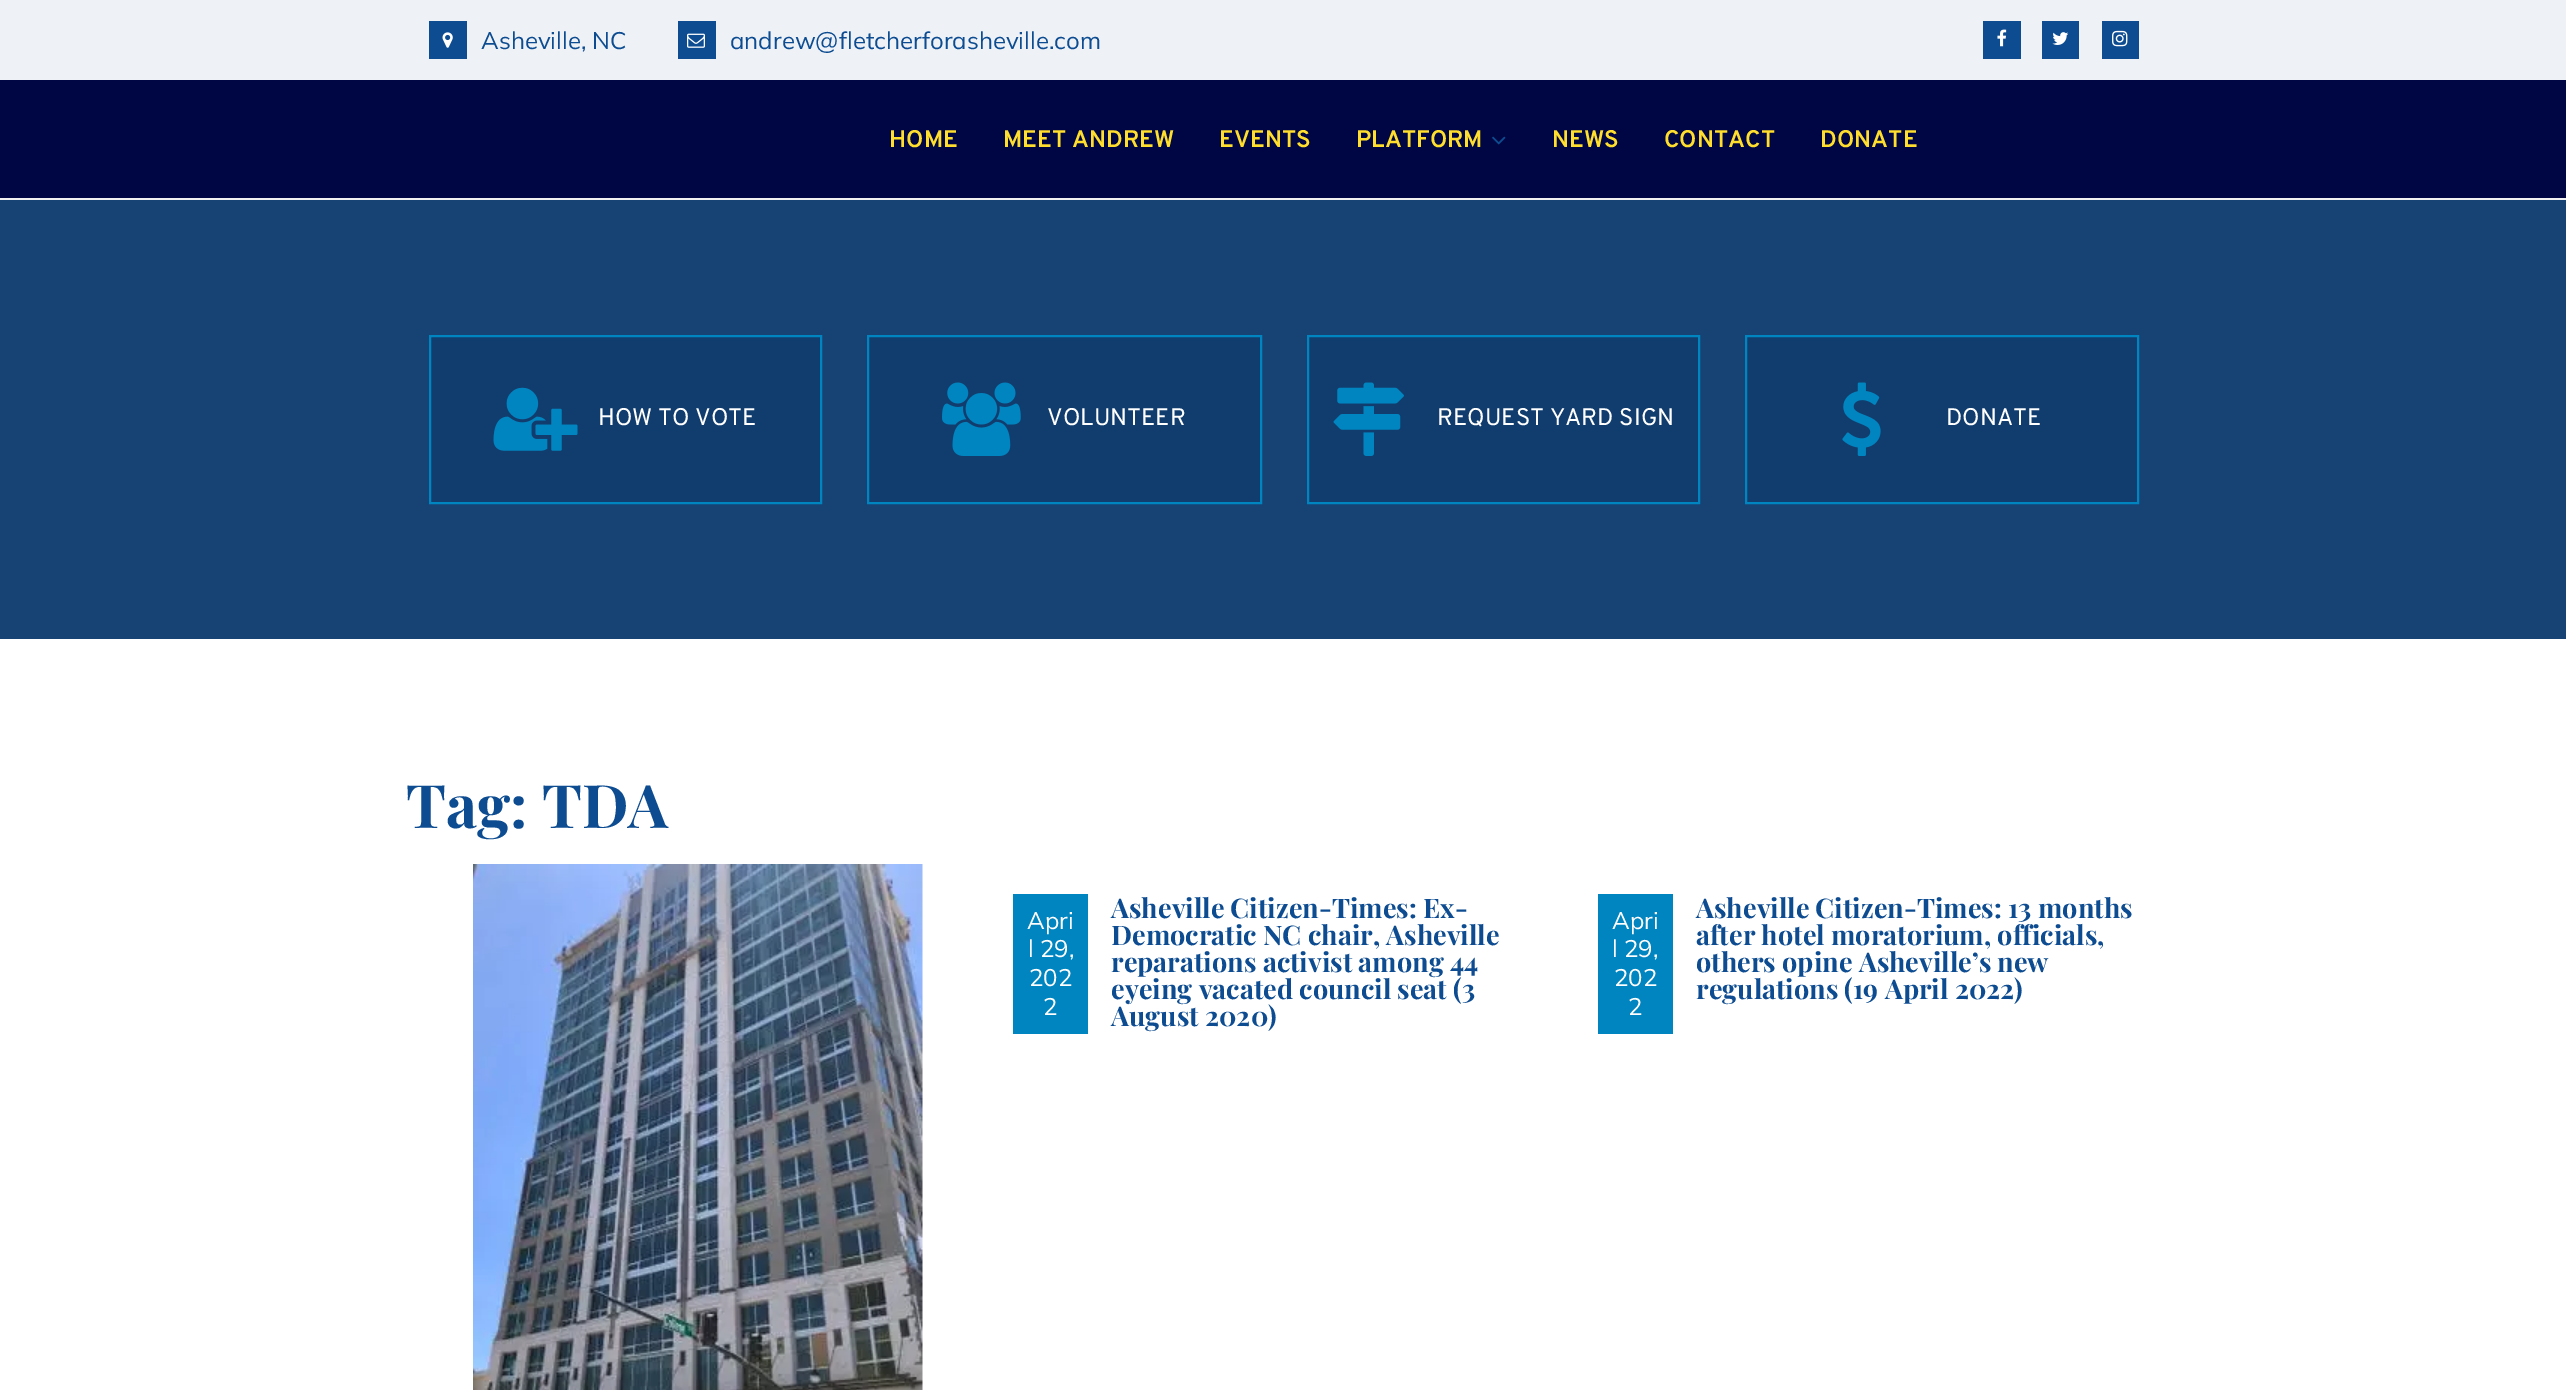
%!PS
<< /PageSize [2566 1390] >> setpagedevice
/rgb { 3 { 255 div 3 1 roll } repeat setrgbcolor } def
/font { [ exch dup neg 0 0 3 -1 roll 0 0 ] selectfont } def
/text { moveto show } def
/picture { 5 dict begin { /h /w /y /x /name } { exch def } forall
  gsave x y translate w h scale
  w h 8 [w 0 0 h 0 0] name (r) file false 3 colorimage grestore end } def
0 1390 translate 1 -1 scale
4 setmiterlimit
255 255 255 rgb
0 0 2566 1390 rectfill
238 242 247 rgb
0 0 2566 80 rectfill
13 76 145 rgb
429 21 38 38 rectfill
(img_01.rgb) 442 32 11 16 picture
678 21 38 38 rectfill
(img_02.rgb) 687 33 18 15 picture
1983 21 38 38 rectfill
(img_03.rgb) 1997 29 10 18 picture
2042 21 37 38 rectfill
(img_04.rgb) 2052 32 17 13 picture
2102 21 37 38 rectfill
(img_05.rgb) 2112 30 16 17 picture
0 6 67 rgb
0 80 2566 118 rectfill
241 241 241 rgb
0 198 2566 2 rectfill
(img_06.rgb) 1492 136 14 9 picture
22 66 116 rgb
0 200 2566 439 rectfill
17 61 110 rgb
430 336 moveto 391 0 rlineto 0 167 rlineto -391 0 rlineto closepath gsave fill grestore
0 133 192 rgb
2 setlinewidth
stroke
(img_07.rgb) 493 387 85 64 picture
17 61 110 rgb
868 336 moveto 393 0 rlineto 0 167 rlineto -393 0 rlineto closepath gsave fill grestore
0 133 192 rgb
stroke
(img_08.rgb) 942 382 79 74 picture
17 61 110 rgb
1308 336 moveto 391 0 rlineto 0 167 rlineto -391 0 rlineto closepath gsave fill grestore
0 133 192 rgb
stroke
(img_09.rgb) 1333 382 71 74 picture
17 61 110 rgb
1746 336 moveto 392 0 rlineto 0 167 rlineto -392 0 rlineto closepath gsave fill grestore
0 133 192 rgb
stroke
(img_10.rgb) 1842 382 39 74 picture
(img_11.rgb) 473 864 450 526 picture
1013 894 75 140 rectfill
1598 894 75 140 rectfill
/Mulish-Regular 24 font
13 76 145 rgb
(Asheville, NC) 481 49 text
(andrew@fletcherforasheville.com) 730 49 text
/Overpass-SemiBold 24 font
255 222 45 rgb
(HOME) 889 147 text
(MEET ANDREW) 1003 147 text
(EVENTS) 1219 147 text
(PLATFORM) 1356 147 text
(NEWS) 1552 147 text
(CONTACT) 1664 147 text
(DONATE) 1820 147 text
/Overpass-Regular 24 font
255 255 255 rgb
(HOW TO VOTE) 598 425 text
(VOLUNTEER) 1047 425 text
(REQUEST YARD SIGN) 1437 425 text
(DONATE) 1946 425 text
/PlayfairDisplay-Bold 60 font
13 76 145 rgb
(Tag: TDA) 406 828 text
/Mulish-Regular 24 font
255 255 255 rgb
(Apri) 1027 929 text
(l 29,) 1028 957 text
(202) 1029 986 text
(2) 1043 1015 text
/PlayfairDisplay-Bold 27 font
13 76 145 rgb
(Asheville Citizen-Times: Ex-) 1111 918 text
(Democratic NC chair, Asheville) 1111 945 text
(reparations activist among 44) 1111 972 text
(eyeing vacated council seat \(3) 1111 999 text
(August 2020\)) 1111 1026 text
/Mulish-Regular 24 font
255 255 255 rgb
(Apri) 1612 929 text
(l 29,) 1612 957 text
(202) 1614 986 text
(2) 1628 1015 text
/PlayfairDisplay-Bold 27 font
13 76 145 rgb
(Asheville Citizen-Times: 13 months) 1696 918 text
(after hotel moratorium, officials,) 1696 945 text
(others opine Asheville’s new) 1696 972 text
(regulations \(19 April 2022\)) 1696 999 text
showpage
